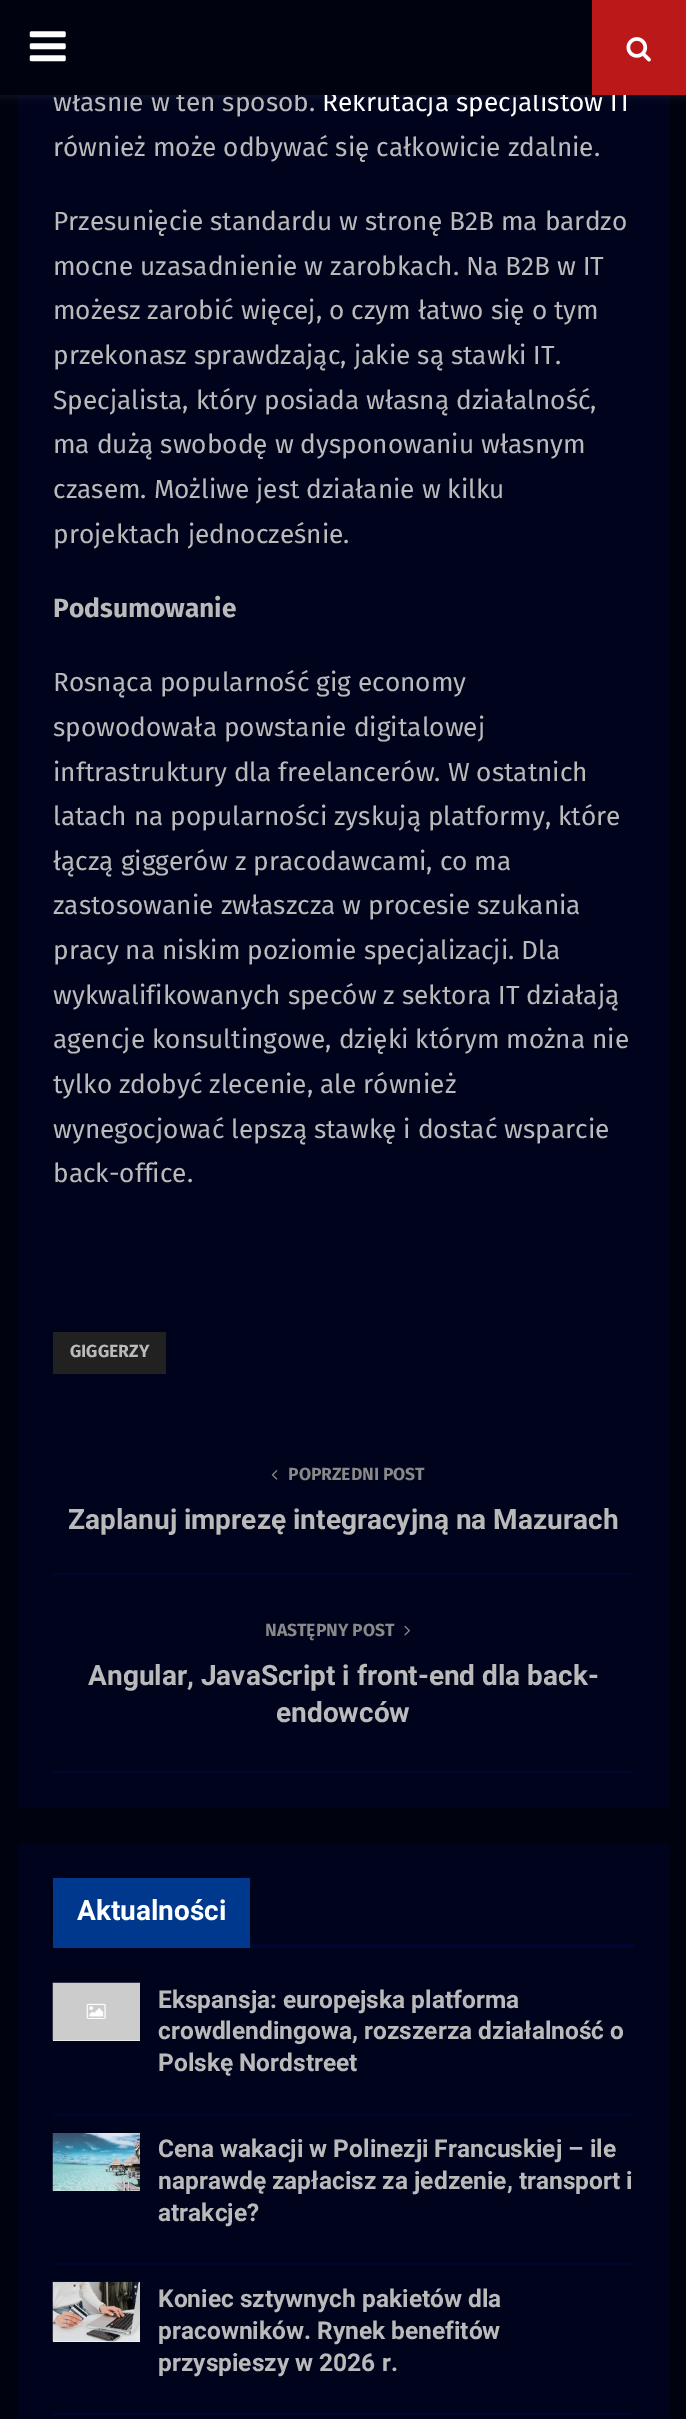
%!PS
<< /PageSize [686 2419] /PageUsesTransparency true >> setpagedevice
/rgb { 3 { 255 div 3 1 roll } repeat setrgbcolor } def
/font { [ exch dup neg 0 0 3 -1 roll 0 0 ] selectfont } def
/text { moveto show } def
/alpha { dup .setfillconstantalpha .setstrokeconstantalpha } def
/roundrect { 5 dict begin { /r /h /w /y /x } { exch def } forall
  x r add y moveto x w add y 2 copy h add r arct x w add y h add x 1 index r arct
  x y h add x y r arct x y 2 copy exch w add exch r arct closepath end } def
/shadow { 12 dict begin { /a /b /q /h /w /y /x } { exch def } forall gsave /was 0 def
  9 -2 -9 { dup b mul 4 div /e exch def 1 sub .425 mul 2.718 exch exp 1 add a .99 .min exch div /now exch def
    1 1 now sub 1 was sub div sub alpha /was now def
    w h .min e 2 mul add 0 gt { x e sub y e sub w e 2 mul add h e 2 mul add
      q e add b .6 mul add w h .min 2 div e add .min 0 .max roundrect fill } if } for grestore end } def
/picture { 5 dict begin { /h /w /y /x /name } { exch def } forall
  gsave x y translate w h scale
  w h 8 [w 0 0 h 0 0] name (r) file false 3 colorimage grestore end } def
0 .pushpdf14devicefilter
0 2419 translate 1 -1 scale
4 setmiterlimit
0 2 16 rgb
0 0 686 2419 rectfill
0 3 28 rgb
18 95 651 1713 rectfill
255 255 255 rgb
0 2 686 94 0 4.5 0.08 shadow
33 33 33 rgb
53 1332 113 42 rectfill
0 6 48 rgb
53 1771 581 2 rectfill
(img_03.rgb) 271 1470 7 10 picture
53 1573 581 2 rectfill
(img_04.rgb) 404 1625 6 11 picture
0 3 28 rgb
18 1843 651 576 rectfill
0 6 48 rgb
250 1944 384 4 rectfill
0 56 141 rgb
53 1878 197 70 rectfill
0 6 48 rgb
53 2114 581 2 rectfill
245 245 245 rgb
53 2040 87 1 rectfill
(img_05.rgb) 52 1982 88 59 picture
0 6 48 rgb
53 2263 581 2 rectfill
(img_06.rgb) 52 2133 88 58 picture
53 2413 581 2 rectfill
245 245 245 rgb
53 2341 87 1 rectfill
(img_07.rgb) 52 2281 88 61 picture
/FiraSans-Regular 26.25 font
186 186 186 rgb
(właśnie w ten sposób.) 53 111 text
255 255 255 rgb
(Rekrutacja specjalistów IT) 322 111 text
0 2 16 rgb
0 0 592 95 rectfill
(img_01.rgb) 29 31 37 31 picture
187 25 25 rgb
592 0 94 95 rectfill
(img_02.rgb) 626 37 25 25 picture
186 186 186 rgb
(również może odbywać się całkowicie zdalnie.) 53 156 text
(Przesunięcie standardu w stronę B2B ma bardzo) 53 230 text
(mocne uzasadnienie w zarobkach. Na B2B w IT) 53 275 text
(możesz zarobić więcej, o czym łatwo się o tym) 53 319 text
(przekonasz sprawdzając, jakie są stawki IT.) 53 364 text
(Specjalista, który posiada własną działalność,) 53 409 text
(ma dużą swobodę w dysponowaniu własnym) 53 453 text
(czasem. Możliwe jest działanie w kilku) 53 498 text
(projektach jednocześnie.) 53 543 text
/FiraSans-Bold 26.25 font
(Podsumowanie) 53 617 text
/FiraSans-Regular 26.25 font
(Rosnąca popularność gig economy) 53 691 text
(spowodowała powstanie digitalowej) 53 736 text
(inftrastruktury dla freelancerów. W ostatnich) 53 781 text
(latach na popularności zyskują platformy, które) 53 825 text
(łączą giggerów z pracodawcami, co ma) 53 870 text
(zastosowanie zwłaszcza w procesie szukania) 53 914 text
(pracy na niskim poziomie specjalizacji. Dla) 53 959 text
(wykwalifikowanych speców z sektora IT działają) 53 1004 text
(agencje konsultingowe, dzięki którym można nie) 53 1048 text
(tylko zdobyć zlecenie, ale również) 53 1093 text
(wynegocjować lepszą stawkę i dostać wsparcie) 53 1138 text
(back-office.) 53 1182 text
/FiraSans-Bold 17.5 font
(GIGGERZY) 70 1357 text
136 136 136 rgb
(POPRZEDNI POST) 288 1480 text
/Roboto-Bold 28 font
186 186 186 rgb
(Zaplanuj imprezę integracyjną na Mazurach) 68 1529 text
/FiraSans-Bold 17.5 font
136 136 136 rgb
(NASTĘPNY POST) 265 1636 text
/Roboto-Bold 28 font
186 186 186 rgb
(Angular, JavaScript i front-end dla back-) 88 1685 text
(endowców) 276 1722 text
255 255 255 rgb
(Aktualności) 77 1920 text
/Roboto-Bold 24.5 font
186 186 186 rgb
(Ekspansja: europejska platforma) 158 2008 text
(crowdlendingowa, rozszerza działalność o) 158 2039 text
(Polskę Nordstreet) 158 2071 text
(Cena wakacji w Polinezji Francuskiej – ile) 158 2157 text
(naprawdę zapłacisz za jedzenie, transport i) 158 2189 text
(atrakcje?) 158 2221 text
(Koniec sztywnych pakietów dla) 158 2307 text
(pracowników. Rynek benefitów) 158 2339 text
(przyspieszy w 2026 r.) 158 2371 text
.poppdf14devicefilter showpage
